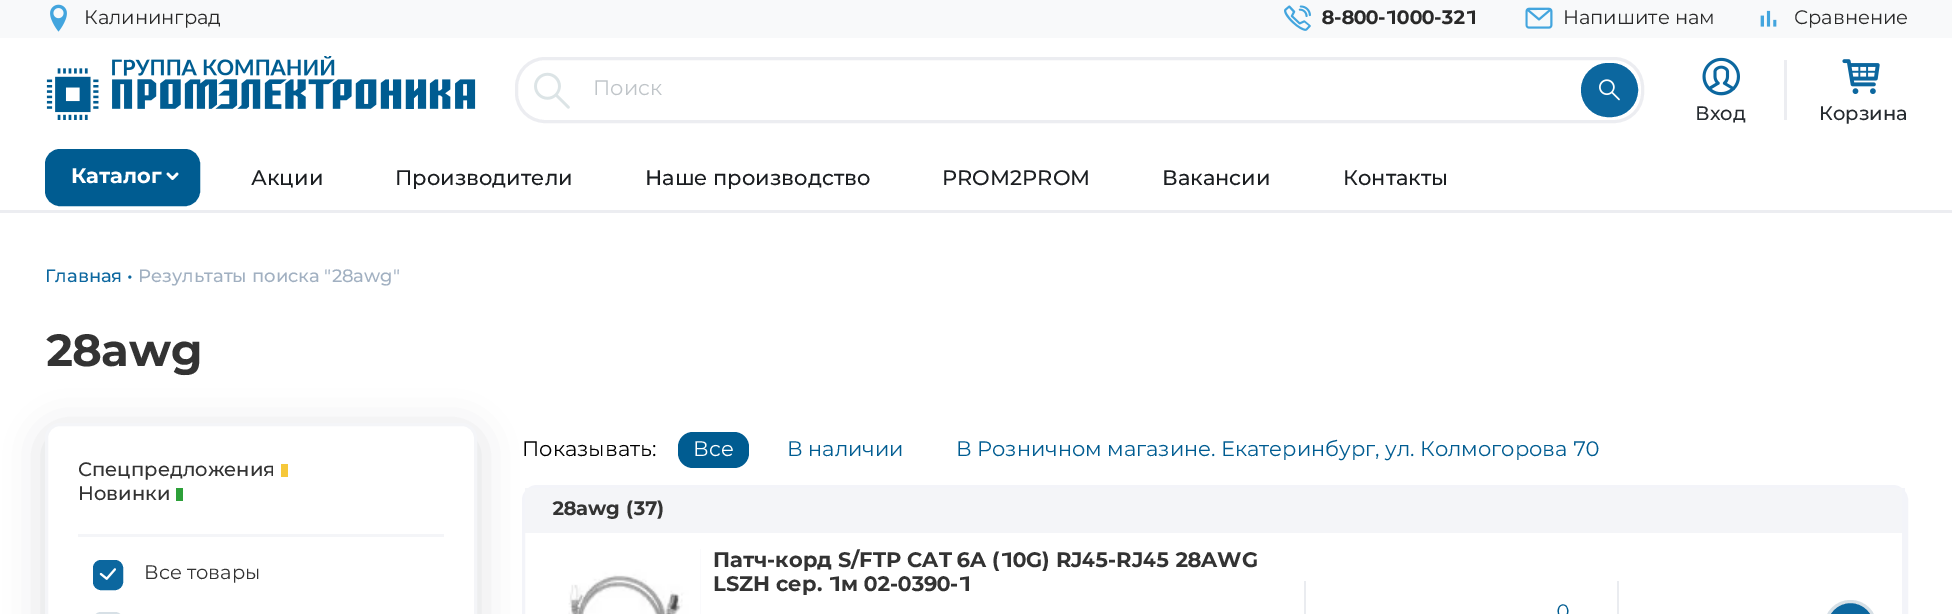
%!PS
<< /PageSize [1952 614] /PageUsesTransparency true >> setpagedevice
/rgb { 3 { 255 div 3 1 roll } repeat setrgbcolor } def
/font { [ exch dup neg 0 0 3 -1 roll 0 0 ] selectfont } def
/text { moveto show } def
/alpha { dup .setfillconstantalpha .setstrokeconstantalpha } def
/roundrect { 5 dict begin { /r /h /w /y /x } { exch def } forall
  x r add y moveto x w add y 2 copy h add r arct x w add y h add x 1 index r arct
  x y h add x y r arct x y 2 copy exch w add exch r arct closepath end } def
/shadow { 12 dict begin { /a /b /q /h /w /y /x } { exch def } forall gsave /was 0 def
  9 -2 -9 { dup b mul 4 div /e exch def 1 sub .425 mul 2.718 exch exp 1 add a .99 .min exch div /now exch def
    1 1 now sub 1 was sub div sub alpha /was now def
    w h .min e 2 mul add 0 gt { x e sub y e sub w e 2 mul add h e 2 mul add
      q e add b .6 mul add w h .min 2 div e add .min 0 .max roundrect fill } if } for grestore end } def
/picture { 5 dict begin { /h /w /y /x /name } { exch def } forall
  gsave x y translate w h scale
  w h 8 [w 0 0 h 0 0] name (r) file false 3 colorimage grestore end } def
0 .pushpdf14devicefilter
0 614 translate 1 -1 scale
4 setmiterlimit
255 255 255 rgb
0 0 1952 614 rectfill
236 237 241 rgb
0 210 1952 3 rectfill
248 249 250 rgb
0 0 1952 38 rectfill
(img_01.rgb) 50 4 17 28 picture
(img_02.rgb) 1284 5 27 26 picture
(img_03.rgb) 1525 7 28 22 picture
(img_04.rgb) 1760 10 17 17 picture
(img_05.rgb) 46 56 430 64 picture
236 237 241 rgb
3 setlinewidth
516.5 58.5 1126 63 28.5 roundrect stroke
(img_06.rgb) 534 72 36 37 picture
12 103 159 rgb
1582.5 64.5 54 51 25.5 roundrect gsave fill grestore
stroke
(img_07.rgb) 1599 79 21 22 picture
(img_08.rgb) 1702 57 38 39 picture
236 237 241 rgb
1784 60 3 60 rectfill
(img_09.rgb) 1842 59 38 35 picture
0 92 145 rgb
46.5 150.5 152 54 13.5 roundrect gsave fill grestore
stroke
(img_10.rgb) 166 172 13 8 picture
gsave
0 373 moveto 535 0 rlineto 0 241 rlineto -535 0 rlineto closepath 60 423 moveto 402 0 rlineto 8.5 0 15 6.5 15 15 rcurveto 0 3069 rlineto 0 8.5 -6.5 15 -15 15 rcurveto -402 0 rlineto -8.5 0 -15 -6.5 -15 -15 rcurveto 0 -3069 rlineto 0 -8.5 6.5 -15 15 -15 rcurveto closepath eoclip newpath
34 37 46 rgb
45 431 432 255 15 19 0.15 shadow
grestore
244 245 248 rgb
46.5 424.5 429 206 13.5 roundrect stroke
78 534 366 3 rectfill
246 200 58 rgb
281 464 7 13 rectfill
45 160 57 rgb
176 488 7 13 rectfill
12 103 159 rgb
94.5 561.5 27 27 6.5 roundrect gsave fill grestore
stroke
(img_11.rgb) 99 568 17 12 picture
215 224 230 rgb
94.5 613.5 27 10 6.5 roundrect stroke
0 92 145 rgb
678 432 71 36 15 roundrect fill
243 244 249 rgb
523.5 486.5 1383 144 13.5 roundrect stroke
1902 488 3 126 rectfill
244 245 248 rgb
525 488 1377 45 rectfill
700 549 1 65 rectfill
(img_12.rgb) 551 549 150 65 picture
234 236 240 rgb
1617 581 2 33 rectfill
1304 581 2 33 rectfill
12 103 159 rgb
1825.5 601.5 50 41 25 roundrect gsave fill grestore
215 224 230 rgb
stroke
/Montserrat-Regular 19.5 font
41 41 41 rgb
(Калининград) 84 24 text
/Montserrat-Bold 19.5 font
(8-800-1000-321) 1322 24 text
/Montserrat-Regular 19.5 font
(Напишите нам) 1563 24 text
(Сравнение) 1794 24 text
/Montserrat-Regular 21 font
191 196 200 rgb
(Поиск) 593 95 text
/Montserrat-Medium 19.5 font
38 43 48 rgb
(Вход) 1695 120 text
(Корзина) 1819 120 text
/Montserrat-Bold 21 font
255 255 255 rgb
(Каталог) 71 183 text
/Montserrat-Medium 21 font
27 30 33 rgb
(Акции) 251 185 text
(Производители) 395 185 text
(Наше производство) 645 185 text
(PROM2PROM) 942 185 text
(Вакансии) 1162 185 text
(Контакты) 1343 185 text
/Montserrat-Medium 18 font
12 103 159 rgb
(Главная) 45 282 text
(•) 127 282 text
161 176 193 rgb
(Результаты поиска "28awg") 138 282 text
/Montserrat-Bold 45 font
51 51 51 rgb
(28awg) 45 366 text
/Montserrat-Medium 19.5 font
(Спецпредложения) 78 476 text
(Новинки) 78 500 text
/Montserrat-Regular 19.5 font
(Все товары) 144 579 text
/Montserrat-Regular 21 font
0 0 0 rgb
(Показывать:) 522 456 text
255 255 255 rgb
(Все) 693 456 text
0 92 145 rgb
(В наличии) 787 456 text
(В Розничном магазине. Екатеринбург, ул. Колмогорова 70) 956 456 text
/Montserrat-Bold 19.5 font
51 51 51 rgb
(28awg \(37\)) 552 515 text
/Montserrat-Bold 21 font
(Патч-корд S/FTP CAT 6A \(10G\) RJ45-RJ45 28AWG) 713 567 text
(LSZH сер. 1м 02-0390-1) 713 591 text
/Montserrat-Regular 19.5 font
0 92 145 rgb
(0) 1557 618 text
.poppdf14devicefilter showpage
